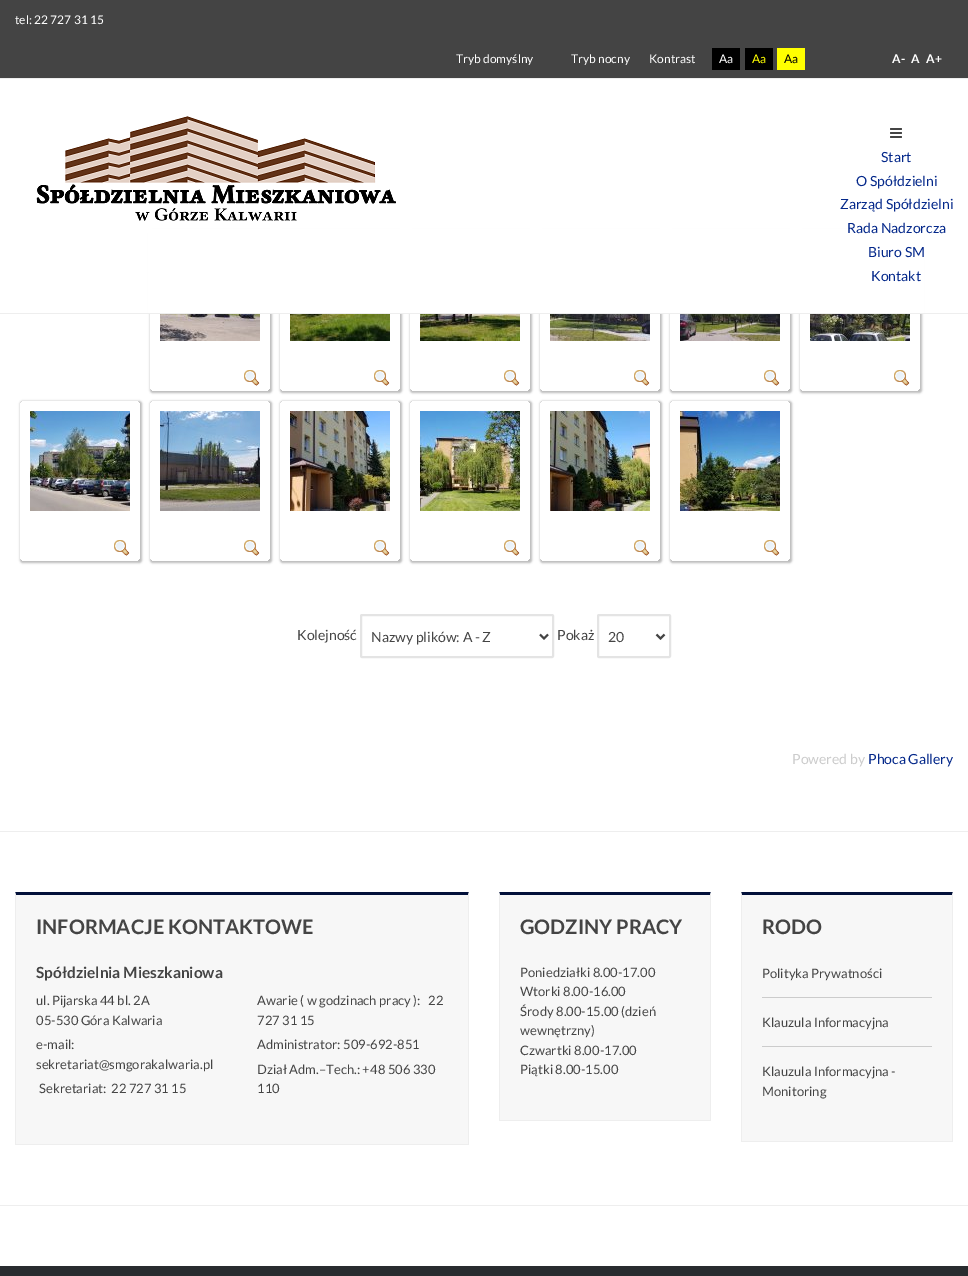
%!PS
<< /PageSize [968 1276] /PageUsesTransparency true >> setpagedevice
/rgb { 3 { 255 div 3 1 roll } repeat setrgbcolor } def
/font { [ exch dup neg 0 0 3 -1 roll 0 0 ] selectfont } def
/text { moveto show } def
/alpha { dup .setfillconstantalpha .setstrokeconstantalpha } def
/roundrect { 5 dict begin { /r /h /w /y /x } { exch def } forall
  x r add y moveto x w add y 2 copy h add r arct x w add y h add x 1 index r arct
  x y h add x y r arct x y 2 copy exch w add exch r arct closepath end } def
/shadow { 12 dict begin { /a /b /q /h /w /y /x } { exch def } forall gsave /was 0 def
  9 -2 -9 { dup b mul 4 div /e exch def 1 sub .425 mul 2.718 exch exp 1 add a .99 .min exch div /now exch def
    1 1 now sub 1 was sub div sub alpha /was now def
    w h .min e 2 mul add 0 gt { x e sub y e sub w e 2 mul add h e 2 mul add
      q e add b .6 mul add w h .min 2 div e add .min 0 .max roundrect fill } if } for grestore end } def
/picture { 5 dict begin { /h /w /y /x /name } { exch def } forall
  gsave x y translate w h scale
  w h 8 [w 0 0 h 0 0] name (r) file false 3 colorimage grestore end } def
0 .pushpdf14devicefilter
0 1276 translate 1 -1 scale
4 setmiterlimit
255 255 255 rgb
0 0 968 1276 rectfill
gsave
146 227 moveto 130 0 rlineto 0 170 rlineto -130 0 rlineto closepath 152 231 moveto 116 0 rlineto 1 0 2 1 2 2 rcurveto 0 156 rlineto 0 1 -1 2 -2 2 rcurveto -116 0 rlineto -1 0 -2 -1 -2 -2 rcurveto 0 -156 rlineto 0 -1 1 -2 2 -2 rcurveto closepath eoclip newpath
120 120 120 rgb
150 231 122 162 3 1 0.5 shadow
grestore
gsave
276 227 moveto 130 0 rlineto 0 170 rlineto -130 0 rlineto closepath 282 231 moveto 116 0 rlineto 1 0 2 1 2 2 rcurveto 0 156 rlineto 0 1 -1 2 -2 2 rcurveto -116 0 rlineto -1 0 -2 -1 -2 -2 rcurveto 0 -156 rlineto 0 -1 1 -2 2 -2 rcurveto closepath eoclip newpath
120 120 120 rgb
280 231 122 162 3 1 0.5 shadow
grestore
gsave
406 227 moveto 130 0 rlineto 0 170 rlineto -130 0 rlineto closepath 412 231 moveto 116 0 rlineto 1 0 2 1 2 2 rcurveto 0 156 rlineto 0 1 -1 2 -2 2 rcurveto -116 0 rlineto -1 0 -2 -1 -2 -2 rcurveto 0 -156 rlineto 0 -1 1 -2 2 -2 rcurveto closepath eoclip newpath
120 120 120 rgb
410 231 122 162 3 1 0.5 shadow
grestore
gsave
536 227 moveto 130 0 rlineto 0 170 rlineto -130 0 rlineto closepath 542 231 moveto 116 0 rlineto 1 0 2 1 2 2 rcurveto 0 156 rlineto 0 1 -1 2 -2 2 rcurveto -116 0 rlineto -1 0 -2 -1 -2 -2 rcurveto 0 -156 rlineto 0 -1 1 -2 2 -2 rcurveto closepath eoclip newpath
120 120 120 rgb
540 231 122 162 3 1 0.5 shadow
grestore
gsave
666 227 moveto 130 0 rlineto 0 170 rlineto -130 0 rlineto closepath 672 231 moveto 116 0 rlineto 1 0 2 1 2 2 rcurveto 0 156 rlineto 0 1 -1 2 -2 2 rcurveto -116 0 rlineto -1 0 -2 -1 -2 -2 rcurveto 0 -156 rlineto 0 -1 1 -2 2 -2 rcurveto closepath eoclip newpath
120 120 120 rgb
670 231 122 162 3 1 0.5 shadow
grestore
gsave
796 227 moveto 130 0 rlineto 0 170 rlineto -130 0 rlineto closepath 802 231 moveto 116 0 rlineto 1 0 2 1 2 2 rcurveto 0 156 rlineto 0 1 -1 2 -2 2 rcurveto -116 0 rlineto -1 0 -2 -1 -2 -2 rcurveto 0 -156 rlineto 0 -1 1 -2 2 -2 rcurveto closepath eoclip newpath
120 120 120 rgb
800 231 122 162 3 1 0.5 shadow
grestore
238 238 238 rgb
0 313 968 1 rectfill
68 68 68 rgb
0 0 968 78 rectfill
238 238 238 rgb
0 78 968 1 rectfill
0 0 0 rgb
712 48 28 22 rectfill
745 48 28 22 rectfill
255 255 0 rgb
777 48 28 22 rectfill
255 255 255 rgb
148 229 776 84 rectfill
(img_01.rgb) 36 116 360 105 picture
(img_02.rgb) 890 128 12 10 picture
(img_03.rgb) 160 314 100 27 picture
(img_04.rgb) 244 370 16 16 picture
(img_05.rgb) 290 314 100 27 picture
(img_04.rgb) 374 370 16 16 picture
(img_06.rgb) 420 314 100 27 picture
(img_04.rgb) 504 370 16 16 picture
(img_07.rgb) 550 314 100 27 picture
(img_04.rgb) 634 370 16 16 picture
(img_08.rgb) 680 314 100 27 picture
(img_04.rgb) 764 370 16 16 picture
(img_09.rgb) 810 314 100 27 picture
(img_04.rgb) 894 370 16 16 picture
gsave
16 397 moveto 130 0 rlineto 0 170 rlineto -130 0 rlineto closepath 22 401 moveto 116 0 rlineto 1 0 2 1 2 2 rcurveto 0 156 rlineto 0 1 -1 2 -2 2 rcurveto -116 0 rlineto -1 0 -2 -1 -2 -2 rcurveto 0 -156 rlineto 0 -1 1 -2 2 -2 rcurveto closepath eoclip newpath
120 120 120 rgb
20 401 122 162 3 1 0.5 shadow
grestore
(img_10.rgb) 30 411 100 100 picture
(img_04.rgb) 114 540 16 16 picture
gsave
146 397 moveto 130 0 rlineto 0 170 rlineto -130 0 rlineto closepath 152 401 moveto 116 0 rlineto 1 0 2 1 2 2 rcurveto 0 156 rlineto 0 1 -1 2 -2 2 rcurveto -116 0 rlineto -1 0 -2 -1 -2 -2 rcurveto 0 -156 rlineto 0 -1 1 -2 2 -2 rcurveto closepath eoclip newpath
120 120 120 rgb
150 401 122 162 3 1 0.5 shadow
grestore
(img_11.rgb) 160 411 100 100 picture
(img_04.rgb) 244 540 16 16 picture
gsave
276 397 moveto 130 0 rlineto 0 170 rlineto -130 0 rlineto closepath 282 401 moveto 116 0 rlineto 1 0 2 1 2 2 rcurveto 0 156 rlineto 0 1 -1 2 -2 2 rcurveto -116 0 rlineto -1 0 -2 -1 -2 -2 rcurveto 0 -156 rlineto 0 -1 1 -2 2 -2 rcurveto closepath eoclip newpath
120 120 120 rgb
280 401 122 162 3 1 0.5 shadow
grestore
(img_12.rgb) 290 411 100 100 picture
(img_04.rgb) 374 540 16 16 picture
gsave
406 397 moveto 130 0 rlineto 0 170 rlineto -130 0 rlineto closepath 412 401 moveto 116 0 rlineto 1 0 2 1 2 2 rcurveto 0 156 rlineto 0 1 -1 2 -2 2 rcurveto -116 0 rlineto -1 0 -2 -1 -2 -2 rcurveto 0 -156 rlineto 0 -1 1 -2 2 -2 rcurveto closepath eoclip newpath
120 120 120 rgb
410 401 122 162 3 1 0.5 shadow
grestore
(img_13.rgb) 420 411 100 100 picture
(img_04.rgb) 504 540 16 16 picture
gsave
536 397 moveto 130 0 rlineto 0 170 rlineto -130 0 rlineto closepath 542 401 moveto 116 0 rlineto 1 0 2 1 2 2 rcurveto 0 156 rlineto 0 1 -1 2 -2 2 rcurveto -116 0 rlineto -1 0 -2 -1 -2 -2 rcurveto 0 -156 rlineto 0 -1 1 -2 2 -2 rcurveto closepath eoclip newpath
120 120 120 rgb
540 401 122 162 3 1 0.5 shadow
grestore
(img_14.rgb) 550 411 100 100 picture
(img_04.rgb) 634 540 16 16 picture
gsave
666 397 moveto 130 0 rlineto 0 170 rlineto -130 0 rlineto closepath 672 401 moveto 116 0 rlineto 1 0 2 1 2 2 rcurveto 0 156 rlineto 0 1 -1 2 -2 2 rcurveto -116 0 rlineto -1 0 -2 -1 -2 -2 rcurveto 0 -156 rlineto 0 -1 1 -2 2 -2 rcurveto closepath eoclip newpath
120 120 120 rgb
670 401 122 162 3 1 0.5 shadow
grestore
(img_15.rgb) 680 411 100 100 picture
(img_04.rgb) 764 540 16 16 picture
228 228 228 rgb
2 setlinewidth
361 615 192 42 1 roundrect stroke
68 68 68 rgb
540 634.5 moveto 4 4 rlineto 4 -4 rlineto stroke
228 228 228 rgb
598 615 72 42 1 roundrect stroke
68 68 68 rgb
656.5 634.5 moveto 4 4 rlineto 4 -4 rlineto stroke
238 238 238 rgb
0 831 968 1 rectfill
0 1205 968 1 rectfill
247 247 247 rgb
16 895 452 249 rectfill
2 17 58 rgb
15 892 moveto 454 0 rlineto -1 3 rlineto -452 0 rlineto closepath fill
238 238 238 rgb
469 892 moveto 0 253 rlineto -1 -1 rlineto 0 -249 rlineto closepath fill
15 1144 454 1 rectfill
15 1145 moveto 0 -253 rlineto 1 3 rlineto 0 249 rlineto closepath fill
247 247 247 rgb
500 895 210 225 rectfill
2 17 58 rgb
499 892 moveto 212 0 rlineto -1 3 rlineto -210 0 rlineto closepath fill
238 238 238 rgb
711 892 moveto 0 229 rlineto -1 -1 rlineto 0 -225 rlineto closepath fill
499 1120 212 1 rectfill
499 1121 moveto 0 -229 rlineto 1 3 rlineto 0 225 rlineto closepath fill
247 247 247 rgb
742 895 210 246 rectfill
2 17 58 rgb
741 892 moveto 212 0 rlineto -1 3 rlineto -210 0 rlineto closepath fill
238 238 238 rgb
953 892 moveto 0 250 rlineto -1 -1 rlineto 0 -246 rlineto closepath fill
741 1141 212 1 rectfill
741 1142 moveto 0 -250 rlineto 1 3 rlineto 0 246 rlineto closepath fill
204 204 204 rgb
762 997 170 1 rectfill
762 1046 170 1 rectfill
41 44 47 rgb
0 1266 968 10 rectfill
/Lato-Regular 12 font
255 255 255 rgb
(tel: 22 727 31 15) 15 24 text
(Tryb domyślny) 456 63 text
(Tryb nocny) 571 63 text
(Kontrast) 649 63 text
(Aa) 719 63 text
255 255 0 rgb
(Aa) 752 63 text
0 0 0 rgb
(Aa) 784 63 text
/Lato-Bold 12 font
255 255 255 rgb
(A-) 892 63 text
(A) 911 63 text
(A+) 926 63 text
/Lato-Regular 14 font
4 40 138 rgb
(Start) 881 162 text
(O Spółdzielni) 856 186 text
(Zarząd Spółdzielni) 840 209 text
(Rada Nadzorcza) 847 233 text
(Biuro SM) 868 257 text
(Kontakt) 871 281 text
68 68 68 rgb
(Kolejność) 297 640 text
(Nazwy plików: A - Z) 371 642 text
(Pokaż) 557 640 text
(20) 608 642 text
204 204 204 rgb
(Powered by) 792 764 text
4 40 138 rgb
(Phoca Gallery) 868 764 text
/Lato-Bold 20 font
68 68 68 rgb
(INFORMACJE KONTAKTOWE) 36 934 text
/Lato-Bold 15.4 font
(Spółdzielnia Mieszkaniowa) 36 978 text
/Lato-Regular 13 font
(ul. Pijarska 44 bl. 2A) 36 1005 text
(05-530 Góra Kalwaria) 36 1025 text
(e-mail:) 36 1049 text
(sekretariat@smgorakalwaria.pl) 36 1069 text
(Sekretariat:) 39 1093 text
(22 727 31 15) 111 1093 text
(Awarie \( w godzinach pracy \):) 257 1005 text
(22) 428 1005 text
(727 31 15) 257 1025 text
(Administrator: 509-692-851) 257 1049 text
(Dział Adm.–Tech.: +48 506 330) 257 1074 text
(110) 257 1093 text
/Lato-Bold 20 font
(GODZINY PRACY) 520 934 text
/Lato-Regular 13 font
(Poniedziałki 8.00-17.00) 520 977 text
(Wtorki 8.00-16.00) 520 996 text
(Środy 8.00-15.00 \(dzień) 520 1016 text
(wewnętrzny\)) 520 1035 text
(Czwartki 8.00-17.00) 520 1055 text
(Piątki 8.00-15.00) 520 1074 text
/Lato-Bold 20 font
(RODO) 762 934 text
/Lato-Regular 13 font
(Polityka Prywatności) 762 978 text
(Klauzula Informacyjna) 762 1027 text
(Klauzula Informacyjna -) 762 1076 text
(Monitoring) 762 1096 text
.poppdf14devicefilter showpage
